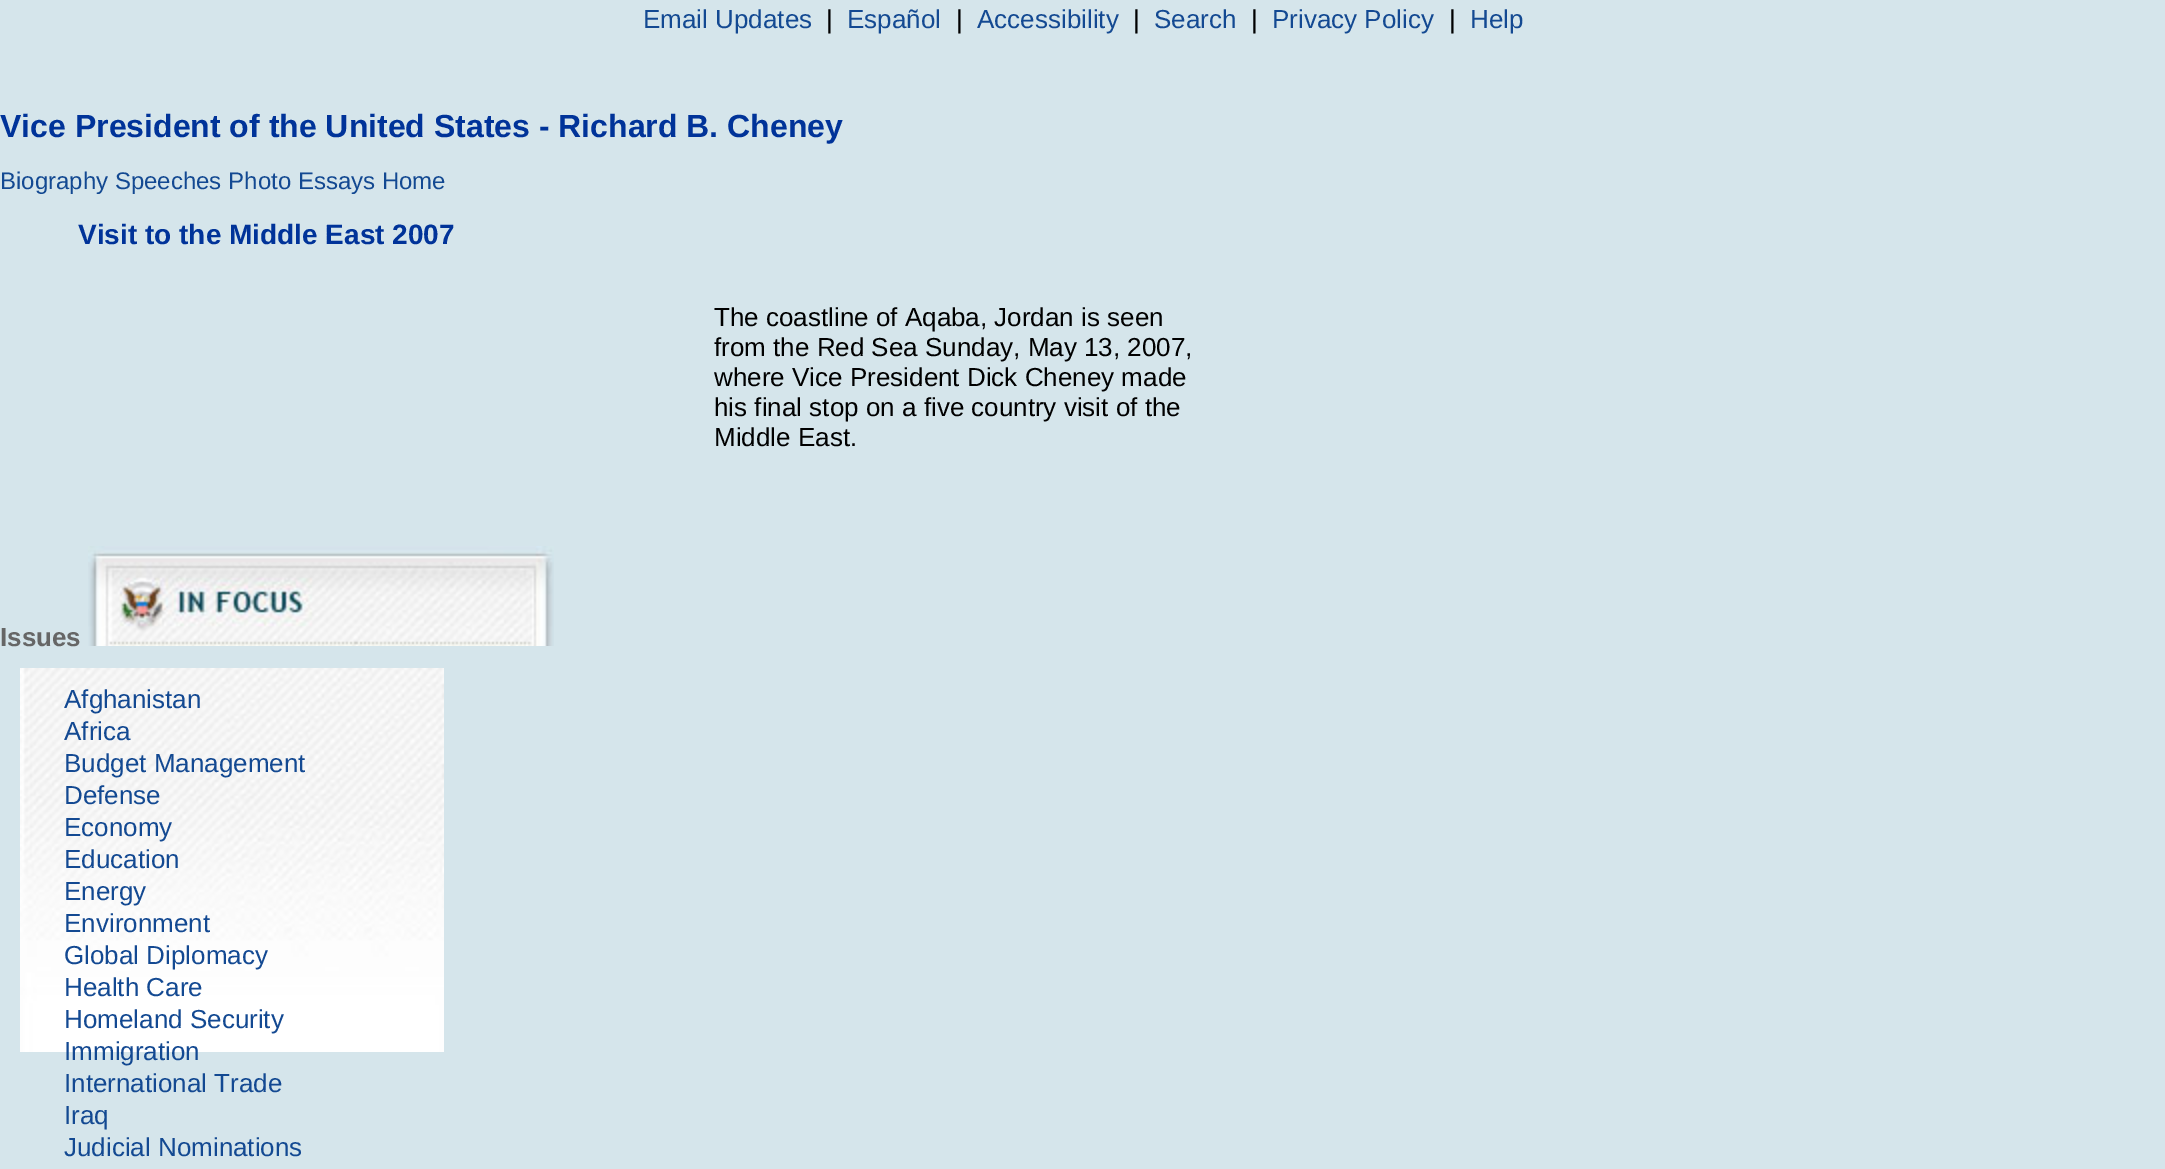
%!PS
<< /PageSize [2165 1169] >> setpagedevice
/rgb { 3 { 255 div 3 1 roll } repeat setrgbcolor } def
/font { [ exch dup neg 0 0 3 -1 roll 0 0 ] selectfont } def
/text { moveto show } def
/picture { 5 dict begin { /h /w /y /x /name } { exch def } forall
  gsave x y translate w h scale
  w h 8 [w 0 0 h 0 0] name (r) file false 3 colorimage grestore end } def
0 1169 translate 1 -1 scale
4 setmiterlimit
213 229 235 rgb
0 0 2165 1169 rectfill
(img_01.rgb) 88 546 466 100 picture
(img_02.rgb) 20 668 424 384 picture
/LiberationSans-Regular 26 font
19 73 146 rgb
(Email Updates) 643 28 text
0 0 0 rgb
(|) 826 28 text
19 73 146 rgb
(Español) 847 28 text
0 0 0 rgb
(|) 956 28 text
19 73 146 rgb
(Accessibility) 977 28 text
0 0 0 rgb
(|) 1133 28 text
19 73 146 rgb
(Search) 1154 28 text
0 0 0 rgb
(|) 1251 28 text
19 73 146 rgb
(Privacy Policy) 1272 28 text
0 0 0 rgb
(|) 1449 28 text
19 73 146 rgb
(Help) 1470 28 text
/LiberationSans-Bold 32 font
0 51 153 rgb
(Vice President of the United States - Richard B. Cheney) 0 137 text
/LiberationSans-Regular 24 font
19 73 146 rgb
(Biography Speeches Photo Essays Home) 0 189 text
/LiberationSans-Bold 28 font
0 51 153 rgb
(Visit to the Middle East 2007) 78 244 text
/LiberationSans-Regular 26 font
0 0 0 rgb
(The coastline of Aqaba, Jordan is seen) 714 326 text
(from the Red Sea Sunday, May 13, 2007,) 714 356 text
(where Vice President Dick Cheney made) 714 386 text
(his final stop on a five country visit of the) 714 416 text
(Middle East.) 714 446 text
/LiberationSans-Bold 26 font
102 102 102 rgb
(Issues) 0 646 text
/LiberationSans-Regular 26 font
19 73 146 rgb
(Afghanistan) 64 708 text
(Africa) 64 740 text
(Budget Management) 64 772 text
(Defense) 64 804 text
(Economy) 64 836 text
(Education) 64 868 text
(Energy) 64 900 text
(Environment) 64 932 text
(Global Diplomacy) 64 964 text
(Health Care) 64 996 text
(Homeland Security) 64 1028 text
(Immigration) 64 1060 text
(International Trade) 64 1092 text
(Iraq) 64 1124 text
(Judicial Nominations) 64 1156 text
showpage
